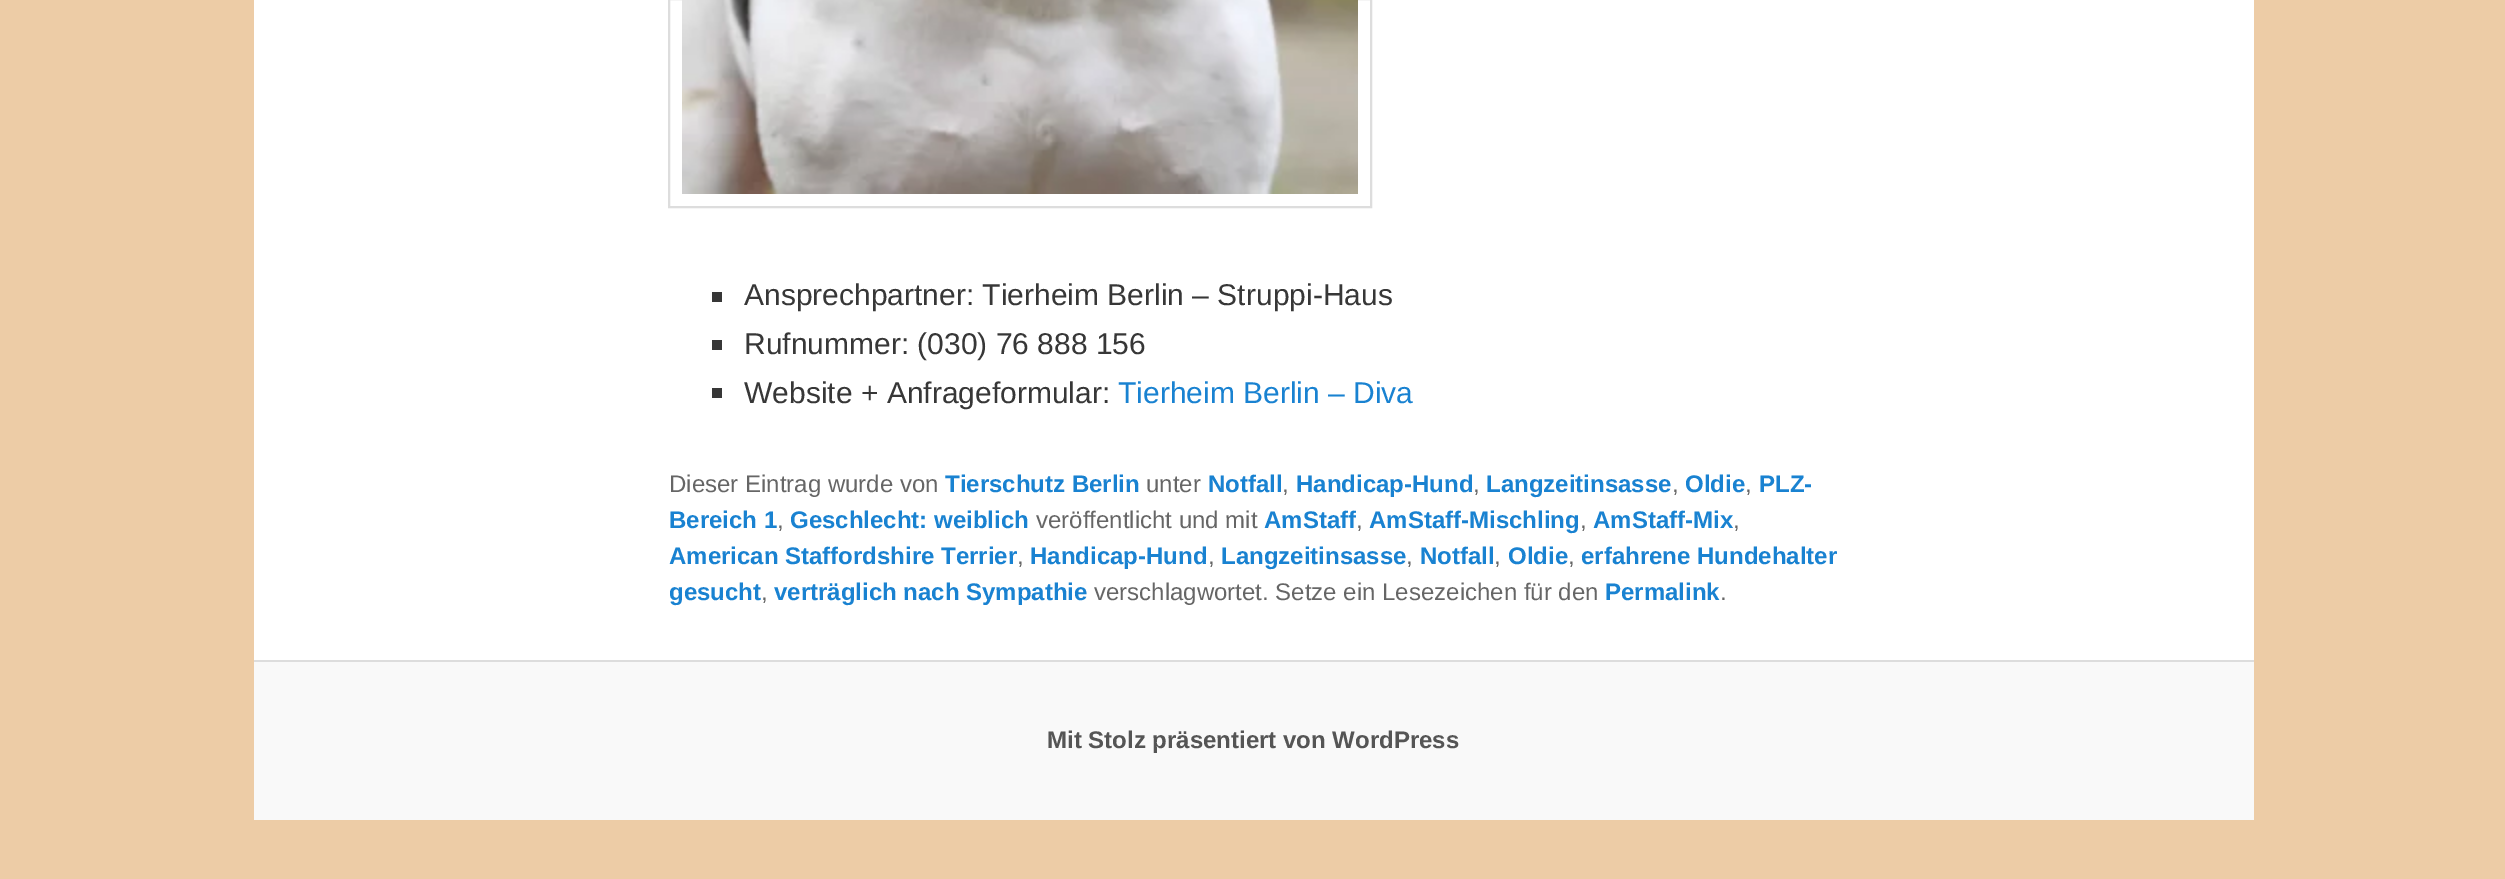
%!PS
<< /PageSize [2505 879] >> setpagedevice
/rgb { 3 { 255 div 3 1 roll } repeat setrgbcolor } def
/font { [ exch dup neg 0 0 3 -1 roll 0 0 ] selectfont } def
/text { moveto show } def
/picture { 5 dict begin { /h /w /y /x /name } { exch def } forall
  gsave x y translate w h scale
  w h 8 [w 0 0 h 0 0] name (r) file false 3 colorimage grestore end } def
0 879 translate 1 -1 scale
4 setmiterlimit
237 204 166 rgb
0 0 2505 879 rectfill
255 255 255 rgb
254 0 2000 660 rectfill
221 221 221 rgb
2 setlinewidth
669 -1 702 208 rectstroke
(img_01.rgb) 682 0 676 194 picture
55 55 55 rgb
712 292 10 10 rectfill
712 340 10 10 rectfill
712 388 10 10 rectfill
249 249 249 rgb
254 662 2000 158 rectfill
221 221 221 rgb
254 660 2000 2 rectfill
/LiberationSans-Regular 30 font
55 55 55 rgb
(Ansprechpartner: Tierheim Berlin – Struppi-Haus) 744 305 text
(Rufnummer: \(030\) 76 888 156) 744 354 text
(Website + Anfrageformular:) 744 403 text
25 130 209 rgb
(Tierheim Berlin – Diva) 1118 403 text
/LiberationSans-Regular 24 font
102 102 102 rgb
(Dieser Eintrag wurde von) 669 492 text
/LiberationSans-Bold 24 font
25 130 209 rgb
(Tierschutz Berlin) 945 492 text
/LiberationSans-Regular 24 font
102 102 102 rgb
(unter) 1146 492 text
/LiberationSans-Bold 24 font
25 130 209 rgb
(Notfall) 1208 492 text
/LiberationSans-Regular 24 font
102 102 102 rgb
(,) 1282 492 text
/LiberationSans-Bold 24 font
25 130 209 rgb
(Handicap-Hund) 1296 492 text
/LiberationSans-Regular 24 font
102 102 102 rgb
(,) 1473 492 text
/LiberationSans-Bold 24 font
25 130 209 rgb
(Langzeitinsasse) 1486 492 text
/LiberationSans-Regular 24 font
102 102 102 rgb
(,) 1672 492 text
/LiberationSans-Bold 24 font
25 130 209 rgb
(Oldie) 1685 492 text
/LiberationSans-Regular 24 font
102 102 102 rgb
(,) 1745 492 text
/LiberationSans-Bold 24 font
25 130 209 rgb
(PLZ-) 1759 492 text
(Bereich 1) 669 528 text
/LiberationSans-Regular 24 font
102 102 102 rgb
(,) 777 528 text
/LiberationSans-Bold 24 font
25 130 209 rgb
(Geschlecht: weiblich) 790 528 text
/LiberationSans-Regular 24 font
102 102 102 rgb
(veröffentlicht und mit) 1036 528 text
/LiberationSans-Bold 24 font
25 130 209 rgb
(AmStaff) 1264 528 text
/LiberationSans-Regular 24 font
102 102 102 rgb
(,) 1356 528 text
/LiberationSans-Bold 24 font
25 130 209 rgb
(AmStaff-Mischling) 1369 528 text
/LiberationSans-Regular 24 font
102 102 102 rgb
(,) 1580 528 text
/LiberationSans-Bold 24 font
25 130 209 rgb
(AmStaff-Mix) 1593 528 text
/LiberationSans-Regular 24 font
102 102 102 rgb
(,) 1733 528 text
/LiberationSans-Bold 24 font
25 130 209 rgb
(American Staffordshire Terrier) 669 564 text
/LiberationSans-Regular 24 font
102 102 102 rgb
(,) 1017 564 text
/LiberationSans-Bold 24 font
25 130 209 rgb
(Handicap-Hund) 1030 564 text
/LiberationSans-Regular 24 font
102 102 102 rgb
(,) 1208 564 text
/LiberationSans-Bold 24 font
25 130 209 rgb
(Langzeitinsasse) 1221 564 text
/LiberationSans-Regular 24 font
102 102 102 rgb
(,) 1406 564 text
/LiberationSans-Bold 24 font
25 130 209 rgb
(Notfall) 1420 564 text
/LiberationSans-Regular 24 font
102 102 102 rgb
(,) 1494 564 text
/LiberationSans-Bold 24 font
25 130 209 rgb
(Oldie) 1508 564 text
/LiberationSans-Regular 24 font
102 102 102 rgb
(,) 1568 564 text
/LiberationSans-Bold 24 font
25 130 209 rgb
(erfahrene Hundehalter) 1581 564 text
(gesucht) 669 600 text
/LiberationSans-Regular 24 font
102 102 102 rgb
(,) 761 600 text
/LiberationSans-Bold 24 font
25 130 209 rgb
(verträglich nach Sympathie) 774 600 text
/LiberationSans-Regular 24 font
102 102 102 rgb
(verschlagwortet. Setze ein Lesezeichen für den) 1094 600 text
/LiberationSans-Bold 24 font
25 130 209 rgb
(Permalink) 1605 600 text
/LiberationSans-Regular 24 font
102 102 102 rgb
(.) 1720 600 text
/LiberationSans-Bold 24 font
85 85 85 rgb
(Mit Stolz präsentiert von WordPress) 1047 748 text
showpage
